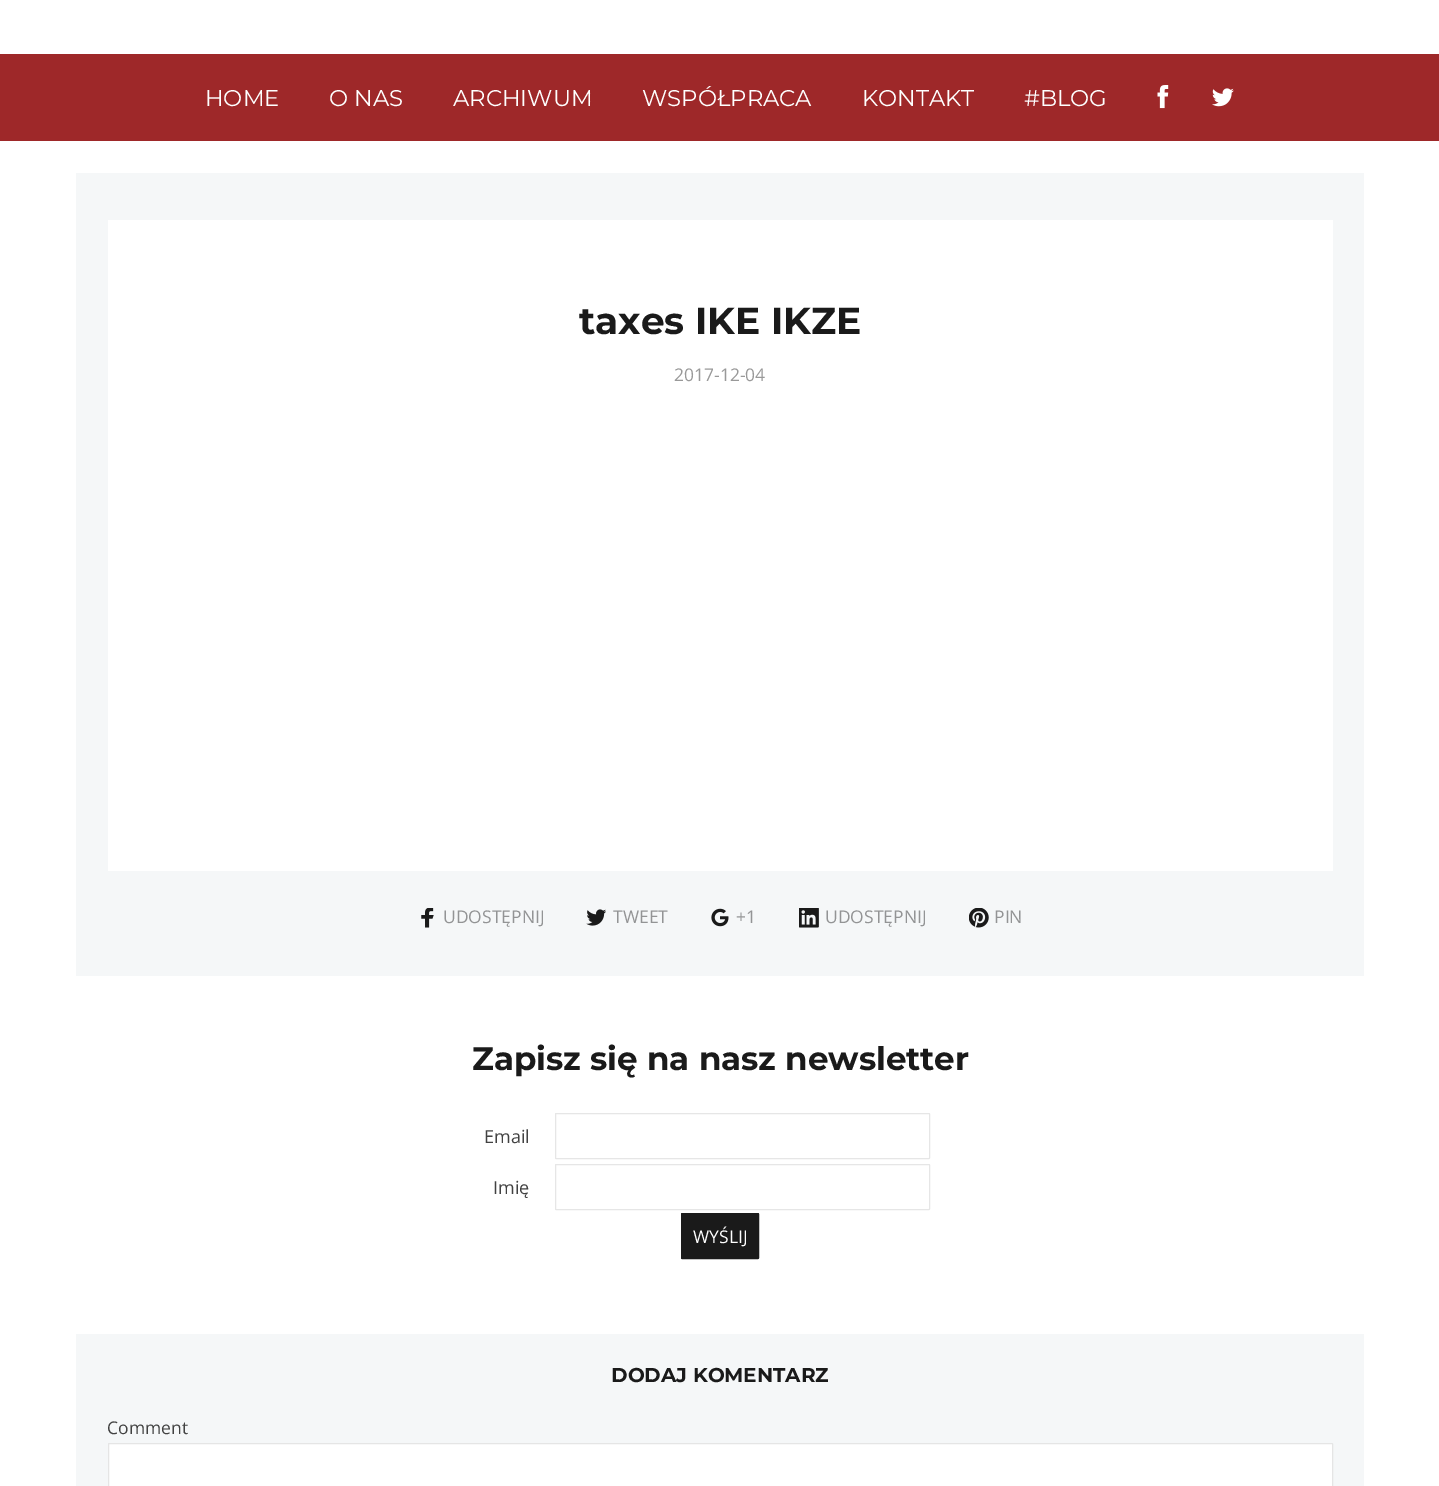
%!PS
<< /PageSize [1439 1486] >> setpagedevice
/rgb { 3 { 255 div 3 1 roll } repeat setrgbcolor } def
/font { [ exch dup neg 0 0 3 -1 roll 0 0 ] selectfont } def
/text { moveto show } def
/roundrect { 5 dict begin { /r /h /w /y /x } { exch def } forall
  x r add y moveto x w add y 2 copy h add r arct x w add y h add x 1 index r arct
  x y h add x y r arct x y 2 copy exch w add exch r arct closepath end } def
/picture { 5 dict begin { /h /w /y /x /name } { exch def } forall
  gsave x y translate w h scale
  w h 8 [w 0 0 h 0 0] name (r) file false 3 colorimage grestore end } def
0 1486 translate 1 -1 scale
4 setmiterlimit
255 255 255 rgb
0 0 1439 1486 rectfill
158 40 41 rgb
0 54 1439 87 rectfill
(img_01.rgb) 1157 85 12 24 picture
(img_02.rgb) 1212 88 22 19 picture
245 247 248 rgb
76 173 1288 803 rectfill
255 255 255 rgb
108 220 1225 651 rectfill
(img_03.rgb) 421 908 13 20 picture
(img_04.rgb) 586 909 20 17 picture
(img_05.rgb) 711 908 18 19 picture
(img_06.rgb) 799 908 20 20 picture
(img_07.rgb) 969 908 20 20 picture
230 230 230 rgb
555.5 1113.5 374 45 0.5 roundrect stroke
555.5 1164.5 374 45 0.5 roundrect stroke
26 26 26 rgb
681.5 1213.5 77 45 0.5 roundrect gsave fill grestore
stroke
245 247 248 rgb
76 1334 1288 152 rectfill
255 255 255 rgb
108.5 1443.5 1224 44 0.5 roundrect gsave fill grestore
229 229 229 rgb
stroke
/Montserrat-Regular 22.75 font
255 255 255 rgb
(HOME) 205 106 text
(O NAS) 329 106 text
(ARCHIWUM) 453 106 text
(WSPÓŁPRACA) 642 106 text
(KONTAKT) 862 106 text
(#BLOG) 1024 106 text
/Montserrat-Bold 37.5 font
26 26 26 rgb
(taxes IKE IKZE) 579 334 text
/OpenSans-Regular 17.5 font
153 153 153 rgb
(2017-12-04) 674 381 text
147 148 149 rgb
(UDOSTĘPNIJ) 443 923 text
(TWEET) 613 923 text
(+1) 736 923 text
(UDOSTĘPNIJ) 825 923 text
(PIN) 994 923 text
/Montserrat-Bold 32.5 font
26 26 26 rgb
(Zapisz się na nasz newsletter) 472 1070 text
/OpenSans-Regular 18 font
66 66 66 rgb
(Email) 484 1143 text
(Imię) 493 1194 text
/OpenSans-Regular 17.5 font
255 255 255 rgb
(WYŚLIJ) 693 1243 text
/Montserrat-Bold 20 font
26 26 26 rgb
(DODAJ KOMENTARZ) 611 1382 text
/OpenSans-Regular 17.5 font
66 66 66 rgb
(Comment) 107 1434 text
showpage
